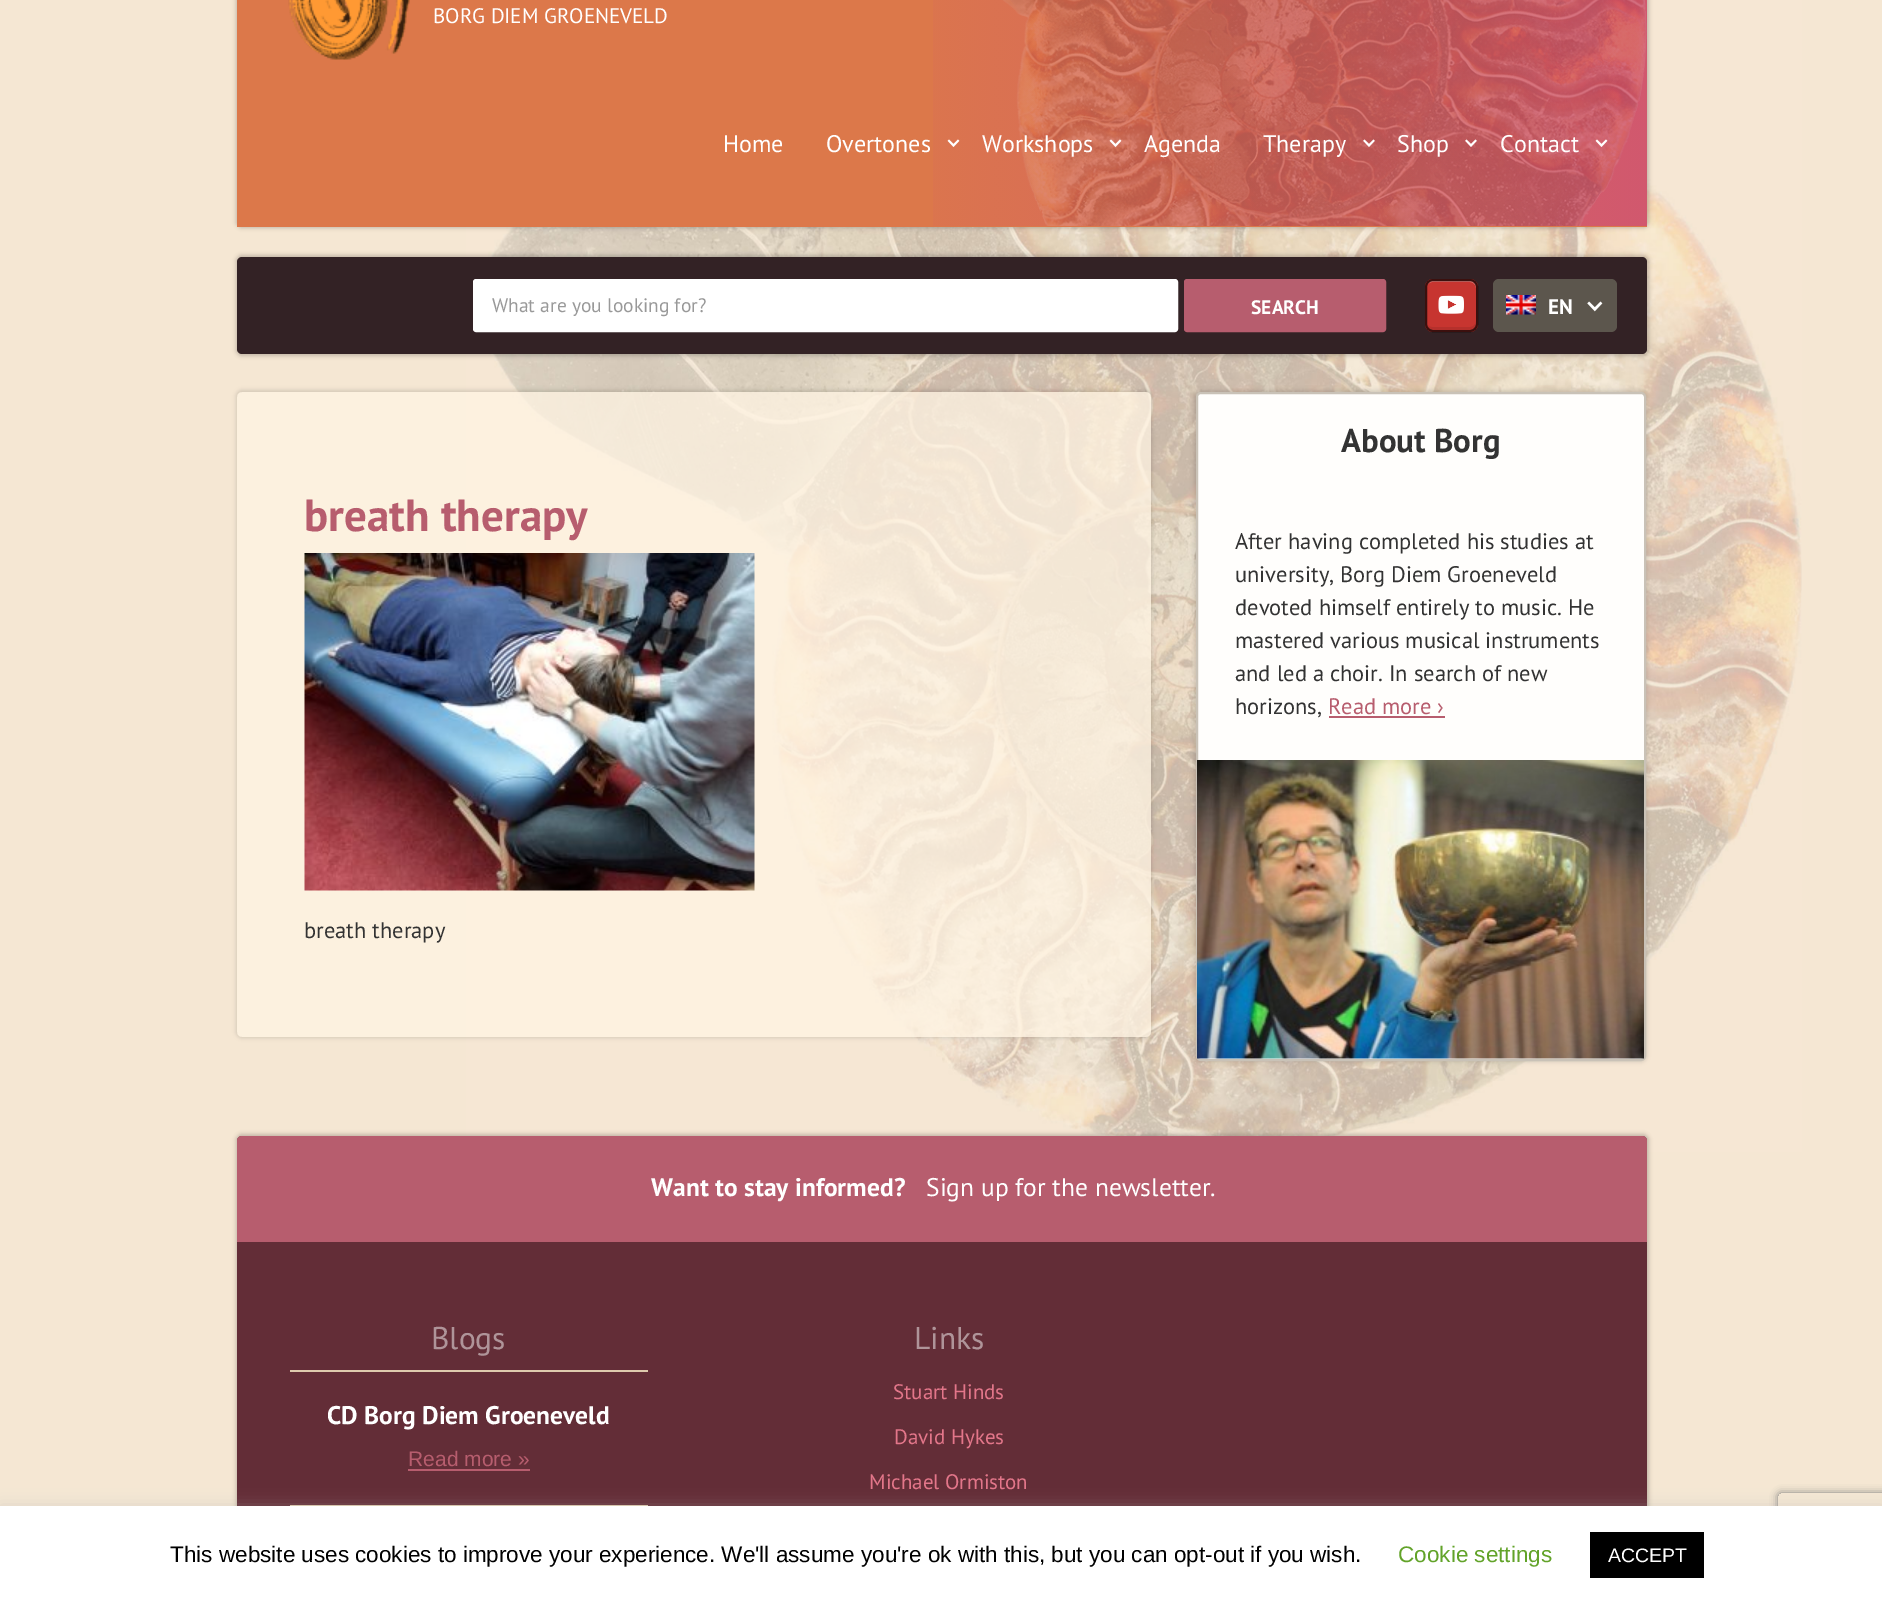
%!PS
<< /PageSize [1882 1603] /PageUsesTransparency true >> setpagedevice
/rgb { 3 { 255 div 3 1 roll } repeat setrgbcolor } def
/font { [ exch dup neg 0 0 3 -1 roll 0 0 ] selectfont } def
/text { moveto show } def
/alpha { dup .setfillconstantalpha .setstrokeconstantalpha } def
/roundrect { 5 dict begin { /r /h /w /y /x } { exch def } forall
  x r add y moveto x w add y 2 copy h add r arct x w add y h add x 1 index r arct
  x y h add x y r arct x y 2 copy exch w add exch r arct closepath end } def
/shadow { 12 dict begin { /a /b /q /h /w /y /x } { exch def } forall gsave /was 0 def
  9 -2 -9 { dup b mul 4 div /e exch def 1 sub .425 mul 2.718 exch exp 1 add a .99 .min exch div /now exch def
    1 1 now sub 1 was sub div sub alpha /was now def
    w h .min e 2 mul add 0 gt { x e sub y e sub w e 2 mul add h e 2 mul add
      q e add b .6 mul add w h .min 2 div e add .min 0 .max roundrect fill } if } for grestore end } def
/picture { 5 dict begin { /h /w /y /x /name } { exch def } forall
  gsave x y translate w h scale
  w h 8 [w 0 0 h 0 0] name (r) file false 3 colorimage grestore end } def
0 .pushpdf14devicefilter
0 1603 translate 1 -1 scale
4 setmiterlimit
245 231 211 rgb
0 0 1882 1603 rectfill
(img_01.rgb) 466 0 1336 1152 picture
0 0 0 rgb
236 -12 1413 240 6 2 0.2 shadow
220 120 74 rgb
237 0 1410 227 rectfill
(img_02.rgb) 933 0 714 226 picture
(img_03.rgb) 288 0 122 60 picture
(img_04.rgb) 947 139 13 8 picture
(img_05.rgb) 1109 139 13 8 picture
(img_06.rgb) 1363 139 12 8 picture
(img_07.rgb) 1465 139 12 8 picture
(img_08.rgb) 1595 139 13 8 picture
0 0 0 rgb
236 255 1413 101 6 2 0.2 shadow
51 34 37 rgb
237 257 1410 97 5 roundrect fill
255 255 255 rgb
474 280 703 51 2 roundrect gsave fill grestore
2 setlinewidth
stroke
183 93 110 rgb
1185 280 200 51 2 roundrect gsave fill grestore
stroke
199 53 48 rgb
1425 279 53 53 8 roundrect fill
181 48 44 rgb
1427 324 moveto 0 3 3 6 6 6 rcurveto 37 0 rlineto 3 0 6 -3 6 -6 rcurveto 0 -3 rlineto 0 3 -3 6 -6 6 rcurveto -38 0 rlineto -2 0 -4 -1 -5 -3 rcurveto closepath fill
215 112 108 rgb
1432 282 moveto 38 0 rlineto 3 0 6 3 6 6 rcurveto 0 -1 rlineto 0 -3 -3 -6 -6 -6 rcurveto -37 0 rlineto -2 0 -4 1 -5 3 rcurveto 1 -1 3 -2 4 -2 rcurveto closepath fill
0.7 alpha
0 0 0 rgb
1426 280 51 51 7 roundrect stroke
1 alpha
(img_09.rgb) 1438 295 26 19 picture
92 86 77 rgb
1493 279 124 53 6 roundrect fill
(img_10.rgb) 1506 295 30 20 picture
(img_11.rgb) 1587 301 16 11 picture
gsave
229 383 moveto 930 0 rlineto 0 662 rlineto -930 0 rlineto closepath 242 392 moveto 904 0 rlineto 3 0 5 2 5 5 rcurveto 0 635 rlineto 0 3 -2 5 -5 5 rcurveto -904 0 rlineto -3 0 -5 -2 -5 -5 rcurveto 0 -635 rlineto 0 -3 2 -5 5 -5 rcurveto closepath eoclip newpath
0 0 0 rgb
236 390 916 648 6 2 0.13 shadow
grestore
0.74 alpha
255 244 227 rgb
237 392 914 645 5 roundrect fill
1 alpha
(img_12.rgb) 304 553 451 338 picture
0 0 0 rgb
1194 390 453 672 6 2 0.12 shadow
255 254 252 rgb
1197 393 448 667 4 roundrect gsave fill grestore
201 194 183 rgb
stroke
183 93 110 rgb
1329 716 116 2 rectfill
(img_13.rgb) 1197 760 447 299 picture
0 0 0 rgb
236 1134 1413 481 6 2 0.2 shadow
99 45 55 rgb
237 1136 1410 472 5 roundrect fill
183 93 110 rgb
242 1136 moveto 1400 0 rlineto 3 0 5 2 5 5 rcurveto 0 101 rlineto -1410 0 rlineto 0 -101 rlineto 0 -3 2 -5 5 -5 rcurveto closepath fill
222 202 173 rgb
290 1370 358 2 rectfill
183 93 110 rgb
408 1469 122 2 rectfill
222 202 173 rgb
290 1505 358 1 rectfill
172 171 171 rgb
0 1505 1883 97 0 7.5 0.3 shadow
gsave
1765 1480 moveto 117 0 rlineto 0 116 rlineto -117 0 rlineto closepath 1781 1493 moveto 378 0 rlineto 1.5 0 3 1.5 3 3 rcurveto 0 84 rlineto 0 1.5 -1.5 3 -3 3 rcurveto -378 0 rlineto -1.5 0 -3 -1.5 -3 -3 rcurveto 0 -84 rlineto 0 -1.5 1.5 -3 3 -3 rcurveto closepath eoclip newpath
128 128 128 rgb
1778 1493 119 90 3 4 1 shadow
grestore
255 255 255 rgb
0 1506 1882 97 rectfill
0 0 0 rgb
1590 1532 114 46 rectfill
/PTSans-Regular 21 font
255 255 255 rgb
(BORG DIEM GROENEVELD) 433 23 text
/PTSans-Regular 24 font
(Home) 723 152 text
(Overtones) 826 152 text
(Workshops) 982 152 text
(Agenda) 1144 152 text
(Therapy) 1263 152 text
(Shop) 1397 152 text
(Contact) 1500 152 text
/PTSans-Regular 19.5 font
153 153 153 rgb
(What are you looking for?) 492 312 text
/PTSans-Bold 19.5 font
255 255 255 rgb
(SEARCH) 1251 314 text
/PTSans-Bold 21 font
(EN) 1548 314 text
/PTSans-Bold 45 font
183 93 110 rgb
(breath therapy) 304 531 text
/PTSans-Regular 22.5 font
51 51 51 rgb
(breath therapy) 304 938 text
/PTSans-Bold 33 font
(About Borg) 1341 452 text
/PTSans-Regular 22.5 font
(After having completed his studies at) 1235 549 text
(university, Borg Diem Groeneveld) 1235 582 text
(devoted himself entirely to music. He) 1235 615 text
(mastered various musical instruments) 1235 648 text
(and led a choir. In search of new) 1235 681 text
(horizons,) 1235 714 text
183 93 110 rgb
(Read more ›) 1328 714 text
/PTSans-Bold 25.5 font
255 255 255 rgb
(Want to stay informed?) 651 1196 text
/PTSans-Regular 25.5 font
(Sign up for the newsletter.) 926 1196 text
/PTSans-Regular 31.5 font
175 148 153 rgb
(Blogs) 431 1349 text
/PTSans-Bold 25.5 font
255 255 255 rgb
(CD Borg Diem Groeneveld) 327 1424 text
/LiberationSans-Regular 21 font
183 93 110 rgb
(Read more ») 408 1466 text
/PTSans-Regular 31.5 font
175 148 153 rgb
(Links) 914 1349 text
/PTSans-Regular 21 font
227 118 138 rgb
(Stuart Hinds) 893 1399 text
(David Hykes) 894 1444 text
(Michael Ormiston) 869 1489 text
/LiberationSans-Regular 22.5 font
0 0 0 rgb
(This website uses cookies to improve your experience. We'll assume you're ok with this, but you can opt-out if you wish.) 170 1562 text
98 163 41 rgb
(Cookie settings) 1398 1562 text
/LiberationSans-Regular 19.5 font
255 255 255 rgb
(ACCEPT) 1608 1562 text
.poppdf14devicefilter showpage
